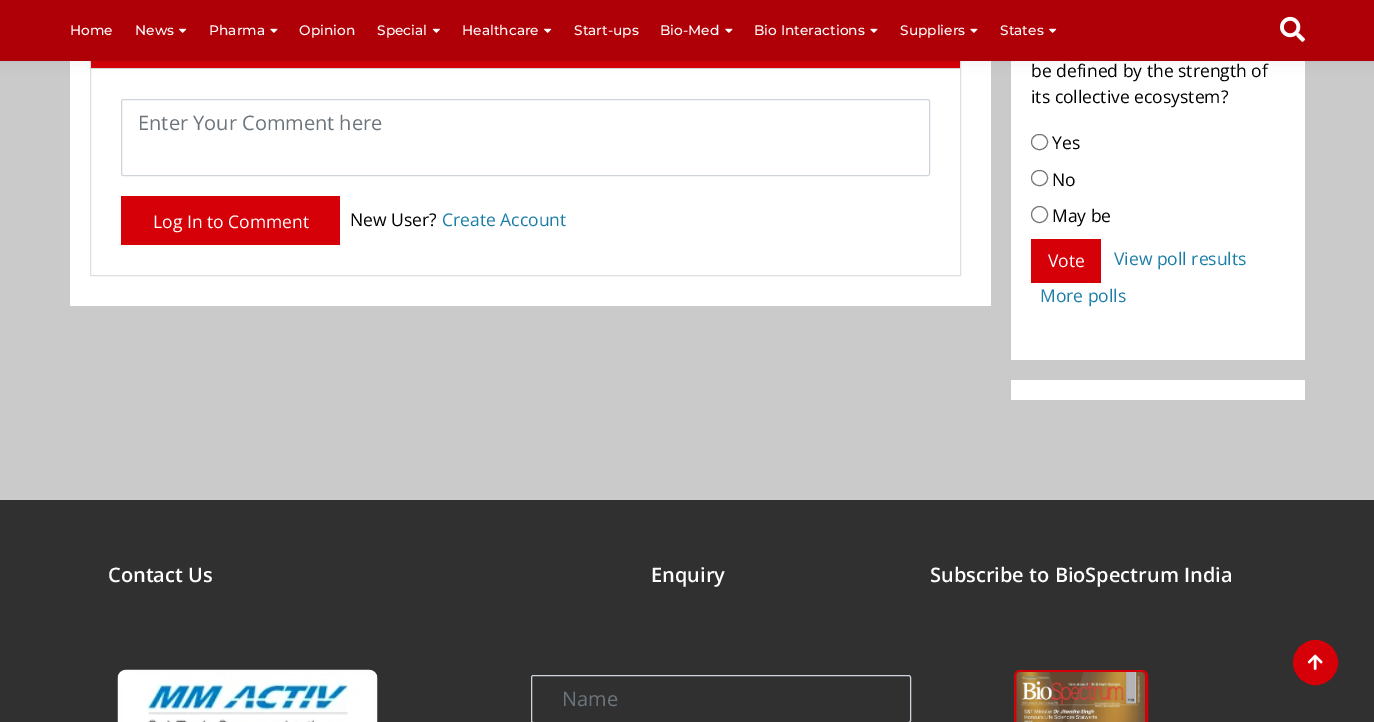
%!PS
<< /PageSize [1374 722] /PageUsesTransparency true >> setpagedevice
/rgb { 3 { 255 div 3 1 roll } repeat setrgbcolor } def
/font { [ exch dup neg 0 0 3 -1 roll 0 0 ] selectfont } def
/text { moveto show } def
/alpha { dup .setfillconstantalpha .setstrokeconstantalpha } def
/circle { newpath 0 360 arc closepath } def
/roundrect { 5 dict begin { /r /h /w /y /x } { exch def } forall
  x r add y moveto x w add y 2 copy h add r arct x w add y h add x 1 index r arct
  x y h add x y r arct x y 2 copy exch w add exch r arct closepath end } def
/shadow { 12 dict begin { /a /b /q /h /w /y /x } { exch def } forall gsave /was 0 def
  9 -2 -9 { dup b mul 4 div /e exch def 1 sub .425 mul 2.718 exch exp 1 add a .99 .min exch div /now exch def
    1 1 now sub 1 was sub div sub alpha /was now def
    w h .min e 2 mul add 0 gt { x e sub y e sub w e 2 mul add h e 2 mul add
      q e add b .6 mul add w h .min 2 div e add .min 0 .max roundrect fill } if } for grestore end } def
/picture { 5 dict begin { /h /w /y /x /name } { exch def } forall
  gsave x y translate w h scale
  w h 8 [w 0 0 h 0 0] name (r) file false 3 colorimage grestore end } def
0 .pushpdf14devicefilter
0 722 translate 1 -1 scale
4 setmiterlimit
202 202 202 rgb
0 0 1374 722 rectfill
255 255 255 rgb
70 61 921 245 rectfill
223 223 223 rgb
90.5 56.5 870 219 rectstroke
216 216 216 rgb
91 68 869 1 rectfill
213 0 8 rgb
91 61 869 7 rectfill
255 255 255 rgb
1011 61 294 299 rectfill
0 0 0 rgb
0 0 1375 61 0 6 0.07 shadow
175 0 7 rgb
0 0 1374 61 rectfill
(img_01.rgb) 179 28 8 5 picture
(img_02.rgb) 270 28 8 5 picture
(img_03.rgb) 432 28 8 5 picture
(img_01.rgb) 544 28 8 5 picture
(img_02.rgb) 725 28 8 5 picture
(img_02.rgb) 870 28 8 5 picture
(img_02.rgb) 970 28 8 5 picture
(img_01.rgb) 1049 28 8 5 picture
(img_04.rgb) 1280 16 25 26 picture
206 212 218 rgb
121.5 99.5 808 76 2 roundrect stroke
213 0 8 rgb
121 196 219 49 rectfill
118 118 118 rgb
1031.5 134.5 16 15 7.5 roundrect stroke
1031.5 170.5 16 15 7.5 roundrect stroke
1039.5 214.5 8 circle stroke
213 0 8 rgb
1031 239 70 44 rectfill
255 255 255 rgb
1011 380 294 20 rectfill
48 48 48 rgb
0 500 1374 222 rectfill
(img_05.rgb) 117 669 261 53 picture
206 212 218 rgb
531.5 675.5 379 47 2 roundrect stroke
213 0 8 rgb
3 setlinewidth
1015.5 671.5 131 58 4.5 roundrect stroke
(img_06.rgb) 1016 672 129 50 picture
1315.5 662.5 22 circle gsave fill grestore
1 setlinewidth
stroke
(img_07.rgb) 1307 654 16 16 picture
/Montserrat-Medium 13.75 font
255 255 255 rgb
(Home) 70 35 text
(News) 135 35 text
(Pharma) 209 35 text
(Opinion) 299 35 text
(Special) 377 35 text
(Healthcare) 462 35 text
(Start-ups) 574 35 text
(Bio-Med) 660 35 text
(Bio Interactions) 754 35 text
(Suppliers) 900 35 text
(States) 1000 35 text
/OpenSans-Regular 20 font
108 117 125 rgb
(Enter Your Comment here) 138 130 text
/OpenSans-Regular 17.5 font
255 255 255 rgb
(Log In to Comment) 153 228 text
0 0 0 rgb
(New User?) 350 226 text
26 125 167 rgb
(Create Account) 442 226 text
0 0 0 rgb
(be defined by the strength of) 1031 77 text
(its collective ecosystem?) 1031 103 text
(Yes) 1052 149 text
(No) 1052 186 text
(May be) 1052 222 text
255 255 255 rgb
(Vote) 1048 267 text
26 125 167 rgb
(View poll results) 1114 265 text
(More polls) 1040 302 text
/OpenSans-SemiBold 20 font
255 255 255 rgb
(Contact Us) 108 582 text
(Enquiry) 651 582 text
/OpenSans-Regular 20 font
108 117 125 rgb
(Name) 562 706 text
/OpenSans-SemiBold 20 font
255 255 255 rgb
(Subscribe to BioSpectrum India) 930 582 text
.poppdf14devicefilter showpage
